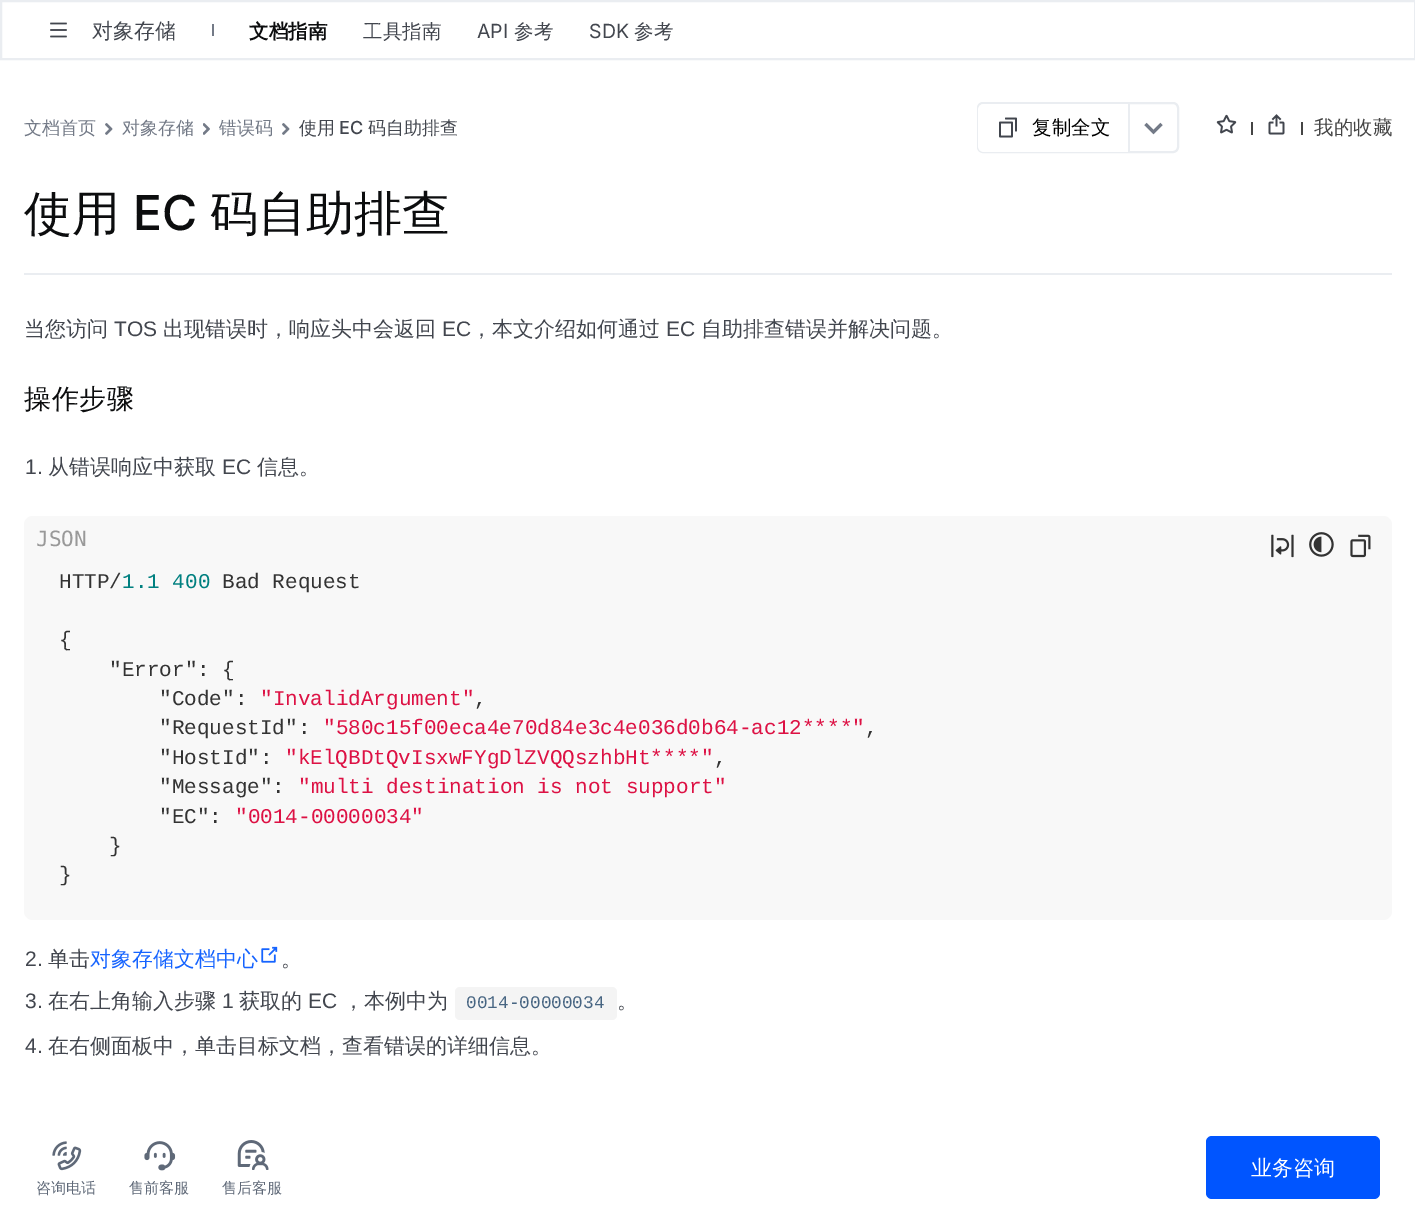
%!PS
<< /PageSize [1415 1228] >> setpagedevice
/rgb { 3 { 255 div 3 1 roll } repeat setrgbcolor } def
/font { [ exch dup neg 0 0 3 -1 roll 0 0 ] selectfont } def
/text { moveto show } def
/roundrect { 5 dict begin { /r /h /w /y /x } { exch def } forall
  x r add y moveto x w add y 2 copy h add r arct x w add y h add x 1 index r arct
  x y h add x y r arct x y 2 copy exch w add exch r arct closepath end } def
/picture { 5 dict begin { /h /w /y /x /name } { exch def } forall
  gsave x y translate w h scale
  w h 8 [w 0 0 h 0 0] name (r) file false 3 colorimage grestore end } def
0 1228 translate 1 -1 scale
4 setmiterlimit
255 255 255 rgb
0 0 1415 1228 rectfill
234 237 241 rgb
2 setlinewidth
1 1 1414 58 rectstroke
(img_01.rgb) 50 22 17 16 picture
115 122 135 rgb
212 24 2 12 rectfill
(img_02.rgb) 105 123 8 12 picture
(img_03.rgb) 203 123 7 12 picture
(img_02.rgb) 282 123 8 12 picture
234 237 241 rgb
978 103 200 49 5 roundrect stroke
255 255 255 rgb
984 104 moveto 146 0 rlineto 0 48 rlineto -146 0 rlineto -3.5 0 -6 -2.5 -6 -6 rcurveto 0 -36 rlineto 0 -3.5 2.5 -6 6 -6 rcurveto closepath fill
234 237 241 rgb
1128 104 2 48 rectfill
(img_04.rgb) 999 117 18 21 picture
115 122 135 rgb
3 setlinewidth
1161.5 124 moveto -8 8 rlineto -8 -8 rlineto stroke
(img_05.rgb) 1216 114 21 20 picture
69 69 69 rgb
1251 122 2 13 rectfill
(img_06.rgb) 1268 114 17 21 picture
1301 122 2 13 rectfill
234 237 241 rgb
24 273 1368 2 rectfill
248 248 248 rgb
24 516 1368 404 9 roundrect fill
(img_07.rgb) 1271 534 23 24 picture
(img_08.rgb) 1309 532 25 25 picture
(img_09.rgb) 1350 534 21 24 picture
(img_10.rgb) 261 946 17 17 picture
244 244 244 rgb
455 987 162 33 5 roundrect fill
0 85 255 rgb
1206 1136 174 63 6 roundrect fill
(img_11.rgb) 52 1141 30 30 picture
(img_12.rgb) 144 1141 32 30 picture
(img_13.rgb) 237 1140 32 30 picture
/WenQuanYiZenHei-Medium 21 font
66 70 78 rgb
(对象存储) 92 38 text
/WenQuanYiZenHei-Bold 19.5 font
12 13 14 rgb
(文档指南) 249 38 text
/WenQuanYiZenHei-Medium 19.5 font
66 70 78 rgb
(工具指南) 363 38 text
/Inter-Regular 19.5 font
(API) 477 38 text
/WenQuanYiZenHei-Medium 19.5 font
(参考) 514 38 text
/Inter-Regular 19.5 font
(SDK) 589 38 text
/WenQuanYiZenHei-Medium 19.5 font
(参考) 634 38 text
/WenQuanYiZenHei-Medium 18 font
115 122 135 rgb
(文档首页) 24 134 text
(对象存储) 122 134 text
(错误码) 219 134 text
66 70 78 rgb
(使用) 299 134 text
/Inter-Medium 18 font
(EC) 339 134 text
/WenQuanYiZenHei-Medium 18 font
(码自助排查) 368 134 text
/WenQuanYiZenHei-Medium 19.5 font
0 0 0 rgb
(复制全文) 1032 134 text
69 69 69 rgb
(我的收藏) 1314 134 text
/WenQuanYiZenHei-Medium 48 font
12 13 14 rgb
(使用) 24 230 text
/Inter-Medium 48 font
(EC) 133 230 text
/WenQuanYiZenHei-Medium 48 font
(码自助排查) 210 230 text
/WenQuanYiZenHei-Medium 21 font
66 70 78 rgb
(当您访问) 24 336 text
/LiberationSans-Regular 21 font
(TOS) 114 336 text
/WenQuanYiZenHei-Medium 21 font
(出现错误时，响应头中会返回) 163 336 text
/LiberationSans-Regular 21 font
(EC) 442 336 text
/WenQuanYiZenHei-Medium 21 font
(，本文介绍如何通过) 471 336 text
/LiberationSans-Regular 21 font
(EC) 666 336 text
/WenQuanYiZenHei-Medium 21 font
(自助排查错误并解决问题。) 701 336 text
/WenQuanYiZenHei-Medium 27 font
12 13 14 rgb
24 408 moveto 0.5 0 (操作步骤) ashow
/LiberationSans-Regular 21 font
66 70 78 rgb
(1.) 25 474 text
/WenQuanYiZenHei-Medium 21 font
(从错误响应中获取) 48 474 text
/LiberationSans-Regular 21 font
(EC) 222 474 text
/WenQuanYiZenHei-Medium 21 font
(信息。) 257 474 text
/DejaVuSansMono-Regular 21 font
153 153 153 rgb
(JSON) 36 546 text
/LiberationMono-Regular 21 font
51 51 51 rgb
(HTTP/) 59 588 text
0 128 128 rgb
(1.1 400) 122 588 text
51 51 51 rgb
(Bad Request) 222 588 text
({) 59 646 text
("Error": {) 109 676 text
("Code":) 159 705 text
221 17 68 rgb
("InvalidArgument") 260 705 text
51 51 51 rgb
(,) 474 705 text
("RequestId":) 159 734 text
221 17 68 rgb
("580c15f00eca4e70d84e3c4e036d0b64-ac12****") 323 734 text
51 51 51 rgb
(,) 865 734 text
("HostId":) 159 764 text
221 17 68 rgb
("kElQBDtQvIsxwFYgDlZVQQszhbHt****") 285 764 text
51 51 51 rgb
(,) 714 764 text
("Message":) 159 793 text
221 17 68 rgb
("multi destination is not support") 298 793 text
51 51 51 rgb
("EC":) 159 823 text
221 17 68 rgb
("0014-00000034") 235 823 text
51 51 51 rgb
(}) 109 852 text
(}) 59 881 text
/LiberationSans-Regular 21 font
66 70 78 rgb
(2.) 25 966 text
/WenQuanYiZenHei-Medium 21 font
(单击) 48 966 text
22 100 255 rgb
(对象存储文档中心) 90 966 text
66 70 78 rgb
(。) 281 966 text
/LiberationSans-Regular 21 font
(3.) 25 1008 text
/WenQuanYiZenHei-Medium 21 font
(在右上角输入步骤) 48 1008 text
/LiberationSans-Regular 21 font
(1) 222 1008 text
/WenQuanYiZenHei-Medium 21 font
(获取的) 239 1008 text
/LiberationSans-Regular 21 font
(EC) 308 1008 text
/WenQuanYiZenHei-Medium 21 font
(，本例中为) 343 1008 text
/LiberationMono-Regular 17.75 font
71 101 130 rgb
(0014-00000034) 466 1008 text
/WenQuanYiZenHei-Medium 21 font
66 70 78 rgb
(。) 617 1008 text
/LiberationSans-Regular 21 font
(4.) 25 1053 text
/WenQuanYiZenHei-Medium 21 font
(在右侧面板中，单击目标文档，查看错误的详细信息。) 48 1053 text
255 255 255 rgb
(业务咨询) 1251 1175 text
/WenQuanYiZenHei-Medium 15 font
95 105 120 rgb
(咨询电话) 36 1193 text
(售前客服) 129 1193 text
(售后客服) 222 1193 text
showpage
